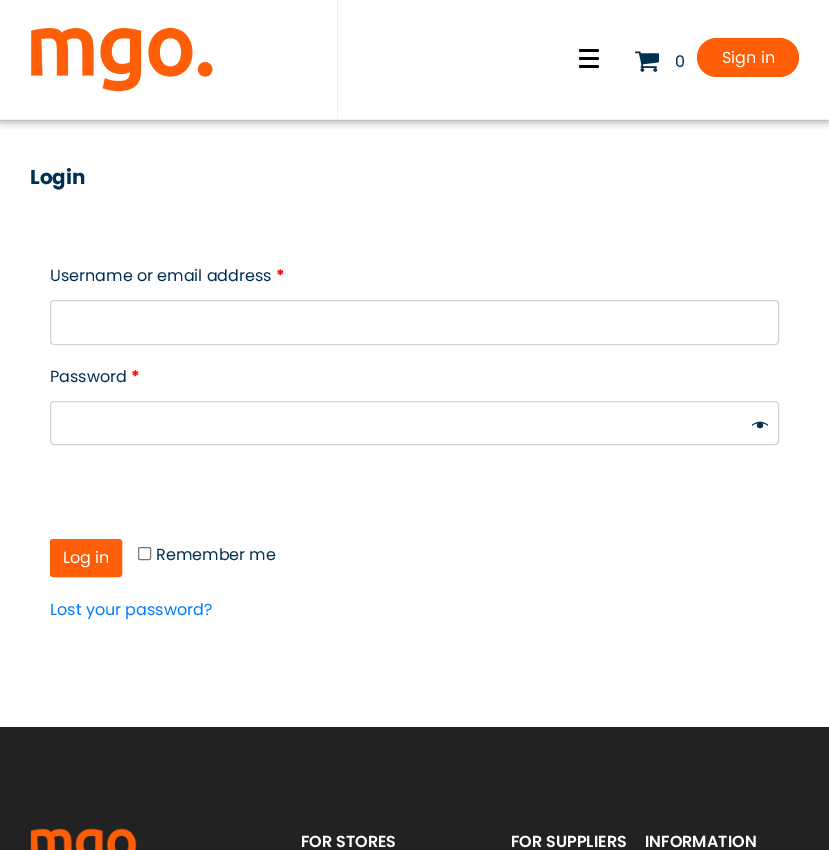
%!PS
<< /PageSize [829 850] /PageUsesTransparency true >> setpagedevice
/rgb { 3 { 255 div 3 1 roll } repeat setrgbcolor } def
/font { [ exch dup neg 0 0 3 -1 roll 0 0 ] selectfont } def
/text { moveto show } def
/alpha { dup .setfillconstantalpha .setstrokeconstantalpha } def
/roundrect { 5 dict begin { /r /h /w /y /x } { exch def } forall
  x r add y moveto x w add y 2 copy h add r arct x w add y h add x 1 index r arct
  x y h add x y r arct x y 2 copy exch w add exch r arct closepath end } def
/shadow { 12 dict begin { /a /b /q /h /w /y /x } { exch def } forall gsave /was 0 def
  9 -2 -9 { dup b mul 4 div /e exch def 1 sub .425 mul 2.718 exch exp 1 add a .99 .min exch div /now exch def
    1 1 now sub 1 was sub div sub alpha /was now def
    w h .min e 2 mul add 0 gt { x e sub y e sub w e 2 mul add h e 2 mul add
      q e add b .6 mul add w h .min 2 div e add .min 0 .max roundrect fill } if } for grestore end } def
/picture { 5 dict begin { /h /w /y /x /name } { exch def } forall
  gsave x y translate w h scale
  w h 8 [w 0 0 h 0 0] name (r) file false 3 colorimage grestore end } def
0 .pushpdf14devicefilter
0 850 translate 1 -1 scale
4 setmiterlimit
255 255 255 rgb
0 0 829 850 rectfill
gsave
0 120 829 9 rectclip
0 0 0 rgb
0 0 829 120 0 5 0.5 shadow
grestore
240 240 240 rgb
0 119 829 1 rectfill
337 0 1 119 rectfill
(img_01.rgb) 31 27 182 65 picture
0 0 0 rgb
579 57 20 3 1.5 roundrect fill
579 49 20 3 1.5 roundrect fill
579 65 20 3 1.5 roundrect fill
(img_02.rgb) 635 51 24 21 picture
254 94 8 rgb
697 38 102 39 19.5 roundrect fill
206 212 218 rgb
50.5 300.5 728 44 3.5 roundrect stroke
50.5 401.5 728 43 3.5 roundrect stroke
(img_03.rgb) 752 421 16 8 picture
254 94 8 rgb
50.5 539.5 71 37 2.5 roundrect gsave fill grestore
stroke
118 118 118 rgb
138.5 547.5 12 12 1.5 roundrect stroke
34 34 34 rgb
0 727 829 123 rectfill
(img_04.rgb) 30 828 107 22 picture
/Poppins-Regular 16 font
0 48 84 rgb
(0) 675 67 text
255 255 255 rgb
(Sign in) 722 63 text
/Poppins-Bold 20 font
0 48 84 rgb
(Login) 30 184 text
/Poppins-Regular 16 font
(Username or email address) 50 281 text
/Poppins-Bold 16 font
255 0 0 rgb
(*) 276 281 text
/Poppins-Regular 16 font
0 48 84 rgb
(Password) 50 382 text
/Poppins-Bold 16 font
255 0 0 rgb
(*) 131 382 text
/Poppins-Regular 16 font
255 255 255 rgb
(Log in) 63 563 text
0 48 84 rgb
(Remember me) 156 560 text
0 123 255 rgb
(Lost your password?) 50 615 text
/Poppins-SemiBold 16 font
255 255 255 rgb
(FOR STORES) 301 847 text
(FOR SUPPLIERS) 511 847 text
(INFORMATION) 645 847 text
.poppdf14devicefilter showpage
